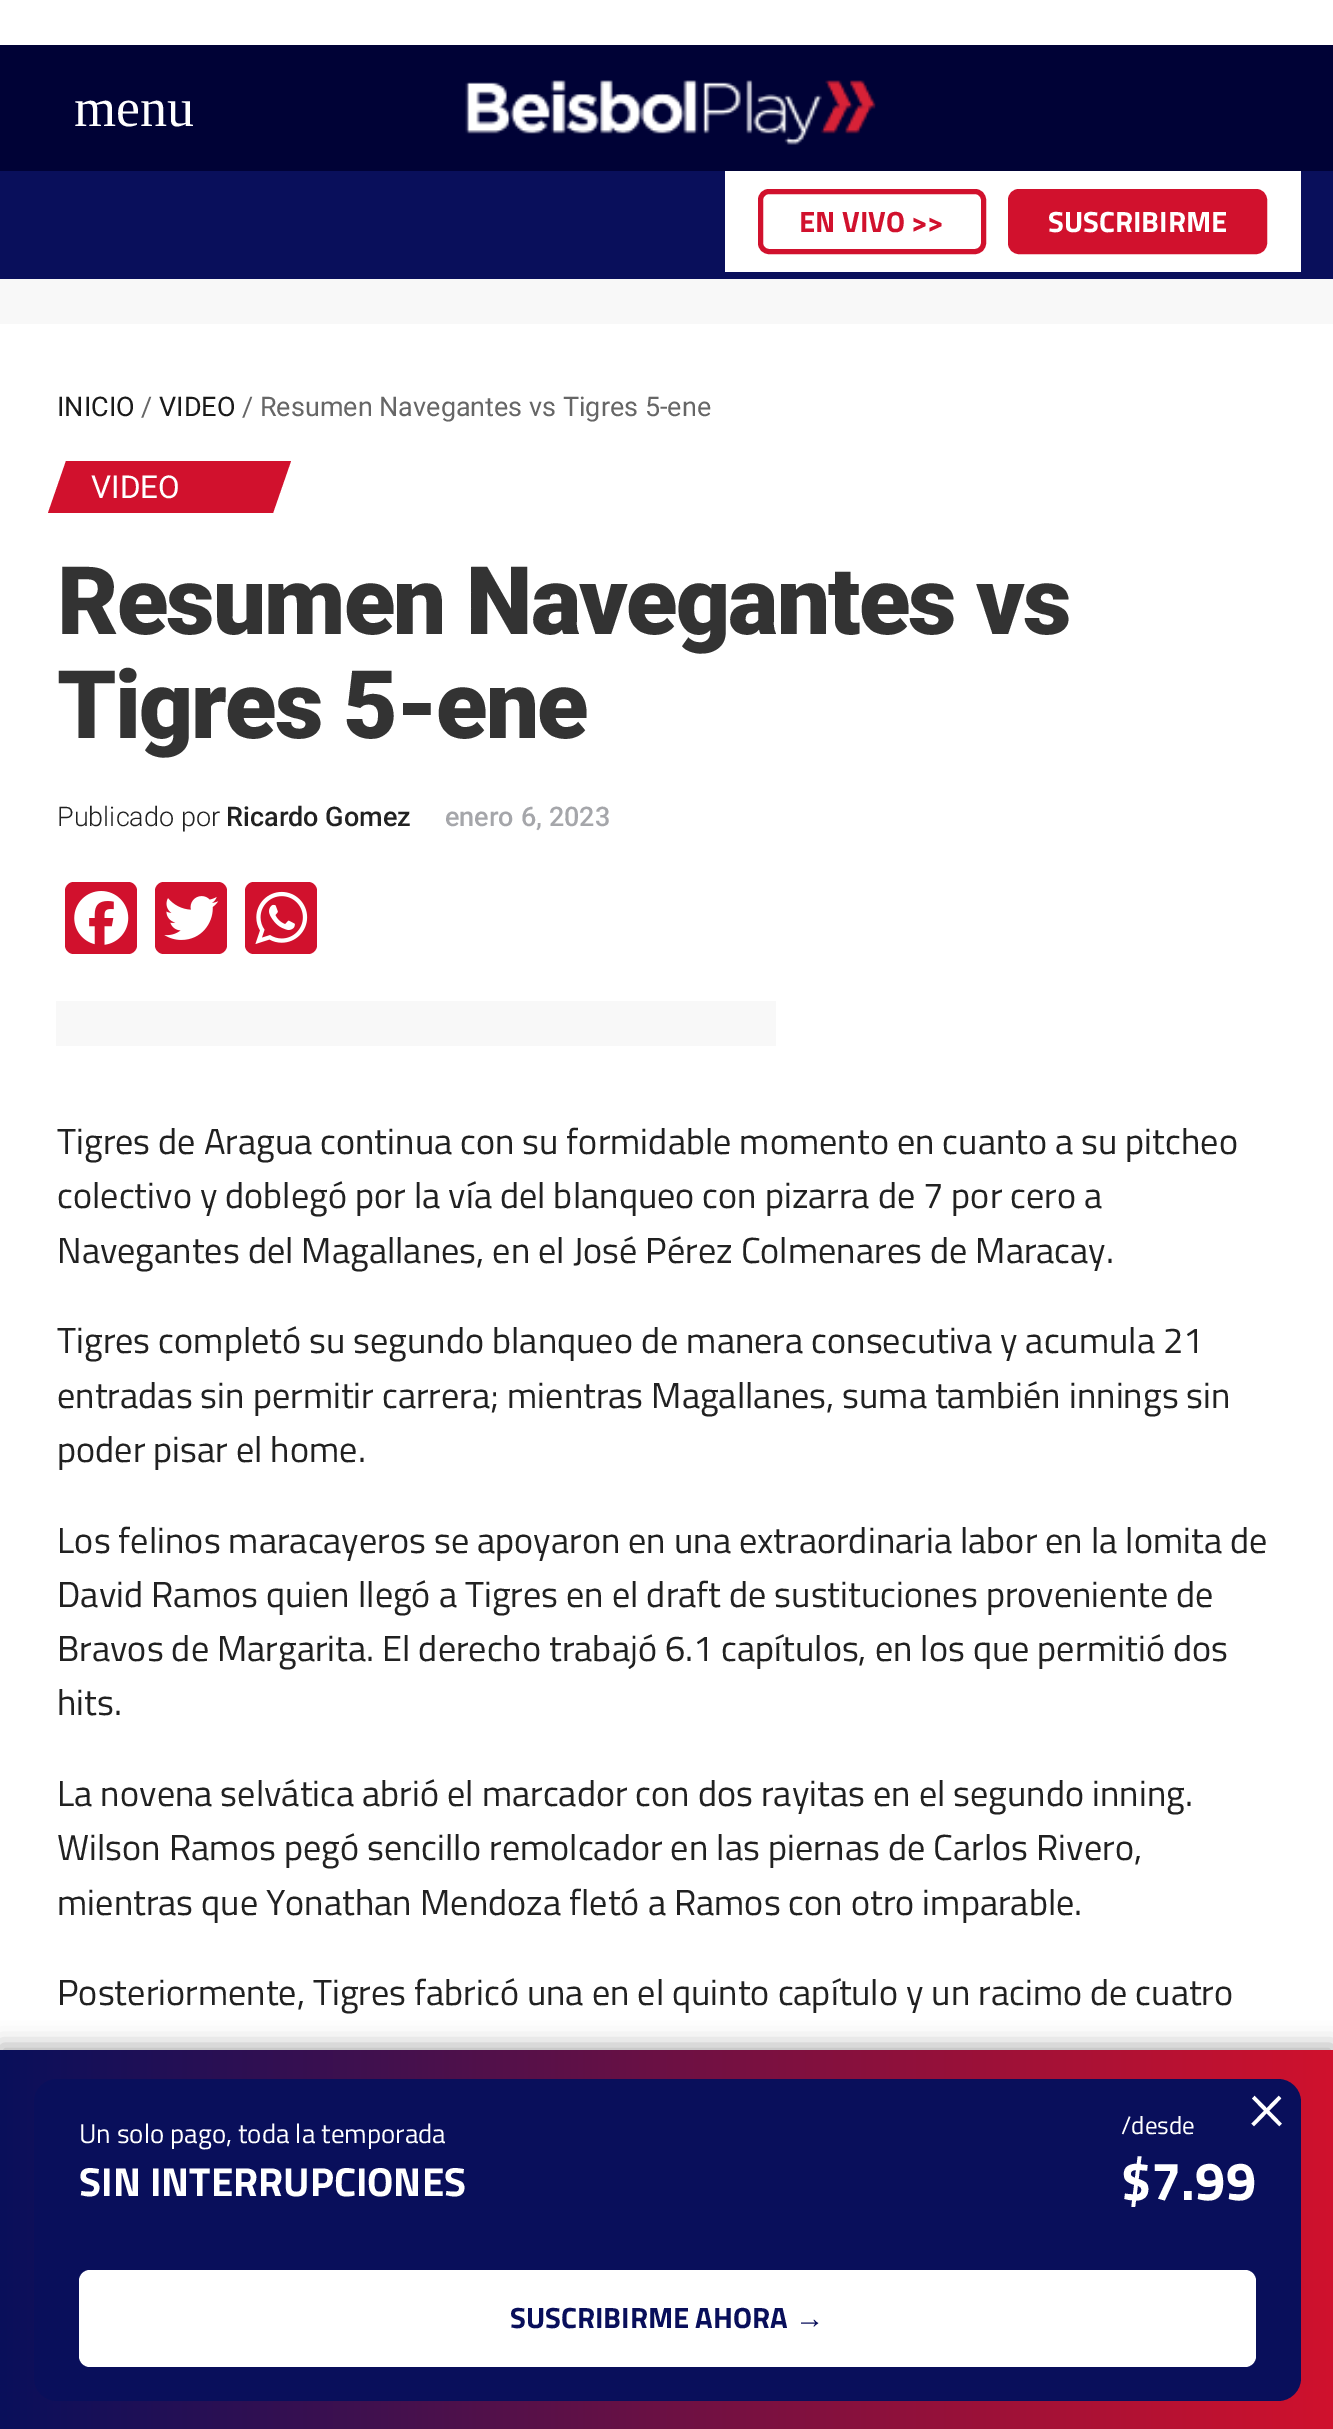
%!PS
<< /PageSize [1333 2429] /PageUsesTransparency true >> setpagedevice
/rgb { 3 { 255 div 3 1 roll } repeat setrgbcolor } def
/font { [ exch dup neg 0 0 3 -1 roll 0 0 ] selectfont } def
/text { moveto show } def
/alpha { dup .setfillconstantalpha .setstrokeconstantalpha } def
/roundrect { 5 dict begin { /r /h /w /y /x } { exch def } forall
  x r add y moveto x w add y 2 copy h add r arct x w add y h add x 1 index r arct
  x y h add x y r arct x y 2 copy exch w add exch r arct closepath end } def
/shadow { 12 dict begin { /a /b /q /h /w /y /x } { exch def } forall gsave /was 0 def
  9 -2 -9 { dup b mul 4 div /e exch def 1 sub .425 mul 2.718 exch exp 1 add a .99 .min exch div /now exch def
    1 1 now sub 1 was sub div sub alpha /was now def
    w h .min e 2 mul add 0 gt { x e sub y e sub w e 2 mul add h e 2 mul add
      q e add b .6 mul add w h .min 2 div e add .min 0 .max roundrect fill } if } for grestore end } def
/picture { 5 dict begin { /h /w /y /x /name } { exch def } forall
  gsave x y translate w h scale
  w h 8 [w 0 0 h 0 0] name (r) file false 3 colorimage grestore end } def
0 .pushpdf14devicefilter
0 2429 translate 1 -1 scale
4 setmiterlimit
255 255 255 rgb
0 0 1333 2429 rectfill
0 2 54 rgb
0 45 1333 126 rectfill
(img_01.rgb) 465 80 411 65 picture
9 15 91 rgb
0 171 1333 108 rectfill
255 255 255 rgb
725 171 576 101 rectfill
209 17 45 rgb
5 setlinewidth
760.5 191.5 223 60 8.5 roundrect stroke
1010.5 191.5 254 60 8.5 roundrect gsave fill grestore
stroke
248 248 248 rgb
0 279 1333 45 rectfill
209 17 45 rgb
66 461 moveto 225 0 rlineto -18 52 rlineto -225 0 rlineto closepath fill
65 882 72 72 9 roundrect fill
(img_02.rgb) 74 891 55 54 picture
155 882 72 72 9 roundrect fill
(img_03.rgb) 164 896 55 44 picture
245 882 72 72 9 roundrect fill
(img_04.rgb) 255 891 53 53 picture
248 248 248 rgb
56 1001 720 45 rectfill
0 0 0 rgb
0 2045 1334 381 0 11 0.3 shadow
gsave 0 2050 moveto 1333 0 rlineto 0 379 rlineto -1333 0 rlineto closepath clip newpath
<< /ShadingType 2 /ColorSpace /DeviceRGB /Coords [0 2240 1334 2240] /Extend [true true] /Function << /FunctionType 2 /Domain [0 1] /C0 [0.035 0.059 0.357] /C1 [0.816 0.067 0.176] /N 1 >> >> shfill grestore
9 15 91 rgb
34 2079 1267 322 23 roundrect fill
255 255 255 rgb
79 2270 1177 97 11 roundrect fill
/LiberationSerif-Regular 54 font
(menu) 74 126 text
/TitilliumWeb-Bold 29.25 font
209 17 45 rgb
(EN VIVO >>) 799 232 text
255 255 255 rgb
(SUSCRIBIRME) 1048 232 text
/Roboto-Regular 27 font
26 26 26 rgb
(INICIO) 57 416 text
102 102 102 rgb
(/) 141 416 text
26 26 26 rgb
(VIDEO) 159 416 text
102 102 102 rgb
(/ Resumen Navegantes vs Tigres 5-ene) 242 416 text
/Roboto-Regular 31.5 font
255 255 255 rgb
(VIDEO) 91 498 text
/Roboto-Black 94.5 font
51 51 51 rgb
57 634 moveto -1.9 0 (Resumen Navegantes vs) ashow
57 738 moveto -1.9 0 (Tigres 5-ene) ashow
/Roboto-Light 27 font
33 33 33 rgb
(Publicado por) 57 826 text
/Roboto-Medium 27 font
(Ricardo Gomez) 226 826 text
165 166 170 rgb
(enero 6, 2023) 445 826 text
/TitilliumWeb-Regular 36.25 font
33 33 33 rgb
(Tigres de Aragua continua con su formidable momento en cuanto a su pitcheo) 57 1154 text
(colectivo y doblegó por la vía del blanqueo con pizarra de 7 por cero a) 57 1208 text
(Navegantes del Magallanes, en el José Pérez Colmenares de Maracay.) 57 1263 text
(Tigres completó su segundo blanqueo de manera consecutiva y acumula 21) 57 1353 text
(entradas sin permitir carrera; mientras Magallanes, suma también innings sin) 57 1408 text
(poder pisar el home.) 57 1462 text
(Los felinos maracayeros se apoyaron en una extraordinaria labor en la lomita de) 57 1553 text
(David Ramos quien llegó a Tigres en el draft de sustituciones proveniente de) 57 1607 text
(Bravos de Margarita. El derecho trabajó 6.1 capítulos, en los que permitió dos) 57 1661 text
(hits.) 57 1715 text
(La novena selvática abrió el marcador con dos rayitas en el segundo inning.) 57 1806 text
(Wilson Ramos pegó sencillo remolcador en las piernas de Carlos Rivero,) 57 1860 text
(mientras que Yonathan Mendoza fletó a Ramos con otro imparable.) 57 1915 text
(Posteriormente, Tigres fabricó una en el quinto capítulo y un racimo de cuatro) 57 2005 text
/Roboto-Light 72 font
255 255 255 rgb
(×) 1248 2130 text
/TitilliumWeb-Regular 27 font
(Un solo pago, toda la temporada) 79 2143 text
/TitilliumWeb-Bold 40.5 font
(SIN INTERRUPCIONES) 79 2196 text
/TitilliumWeb-Regular 25 font
(/desde) 1121 2134 text
/TitilliumWeb-Bold 54 font
($7.99) 1121 2200 text
/TitilliumWeb-Bold 29.25 font
9 15 91 rgb
(SUSCRIBIRME AHORA) 510 2328 text
/LiberationSans-Bold 29.25 font
(→) 795 2328 text
.poppdf14devicefilter showpage
